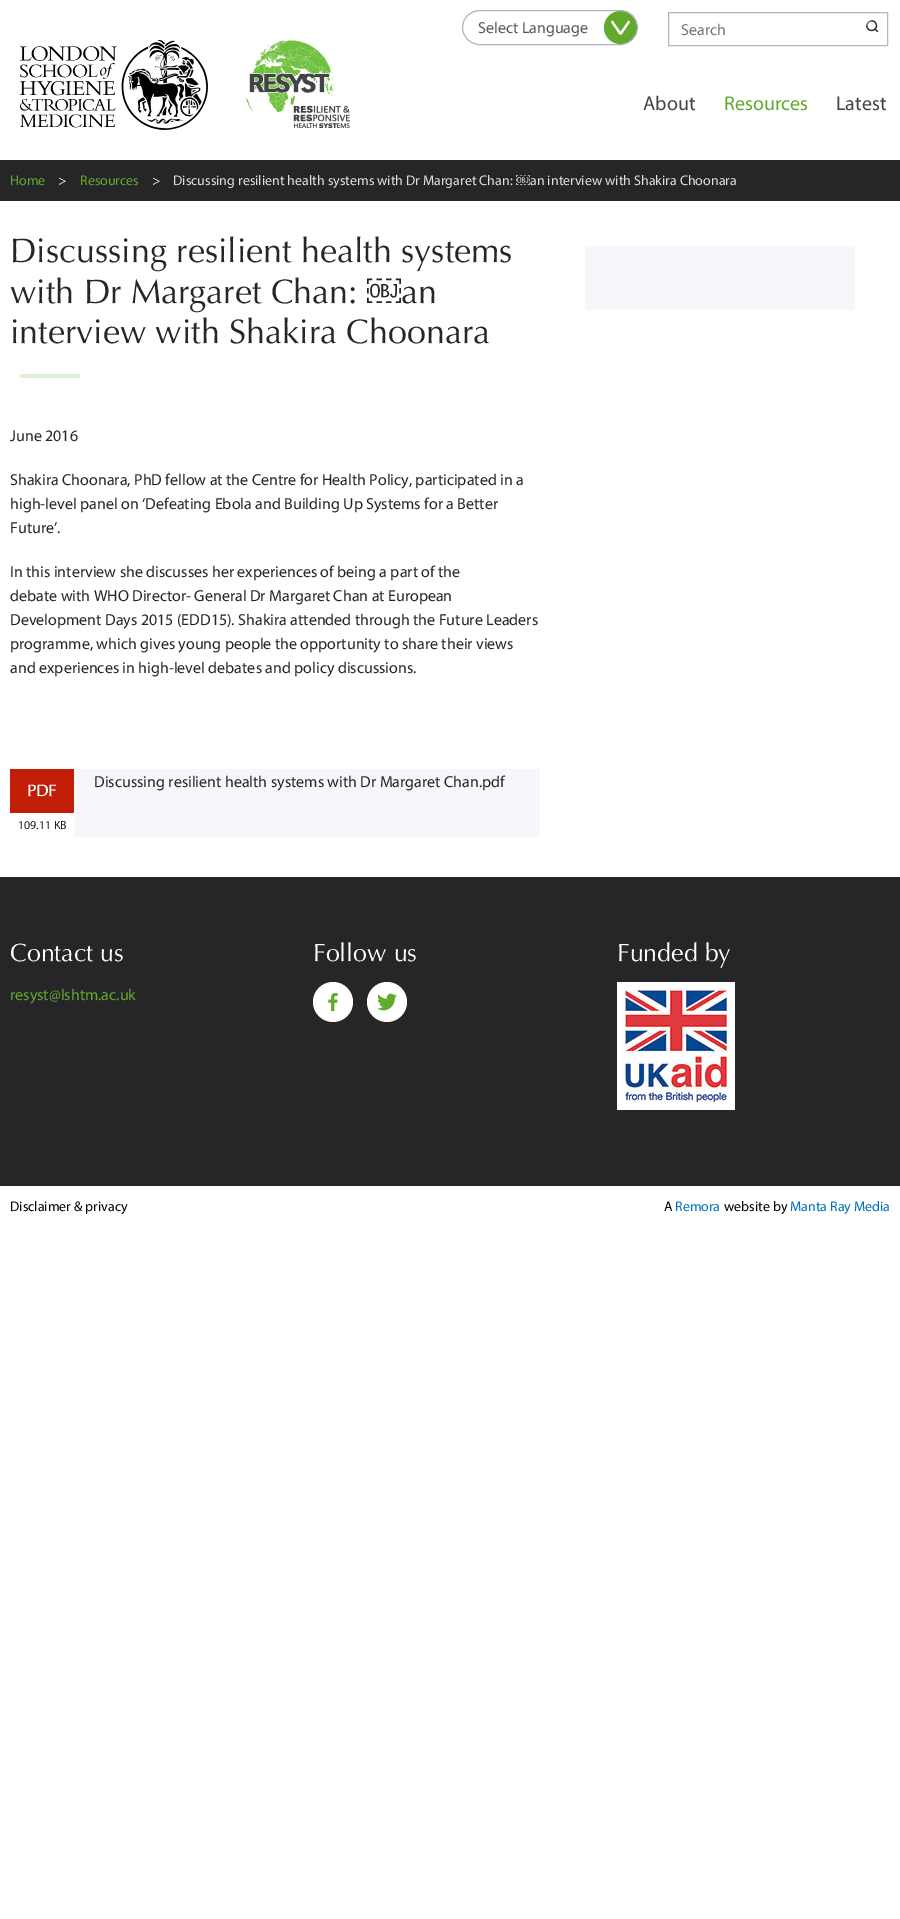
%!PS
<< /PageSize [900 1919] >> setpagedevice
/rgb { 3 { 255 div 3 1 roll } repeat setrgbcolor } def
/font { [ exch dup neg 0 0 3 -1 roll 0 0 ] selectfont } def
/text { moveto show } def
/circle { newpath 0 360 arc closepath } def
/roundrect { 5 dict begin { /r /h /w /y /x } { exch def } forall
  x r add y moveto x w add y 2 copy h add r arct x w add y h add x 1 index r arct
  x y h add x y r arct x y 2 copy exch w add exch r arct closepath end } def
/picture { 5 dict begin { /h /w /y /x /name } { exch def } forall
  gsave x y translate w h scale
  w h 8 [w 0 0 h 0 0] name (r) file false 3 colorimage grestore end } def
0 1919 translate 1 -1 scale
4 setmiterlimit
255 255 255 rgb
0 0 900 1919 rectfill
97 170 45 rgb
620.5 27.5 16.5 circle fill
255 255 255 rgb
630 22 moveto -8.5 12.5 rlineto -2 0 rlineto -8.5 -12.5 rlineto 1.5 -1.5 rlineto 8 11.5 rlineto 8 -11.5 rlineto closepath fill
180 180 194 rgb
462.5 10.5 175 34 17 roundrect stroke
668.5 12.5 219 33 rectstroke
(img_01.rgb) 866 20 13 13 picture
(img_02.rgb) 20 40 188 90 picture
(img_03.rgb) 245 40 105 88 picture
38 38 41 rgb
0 160 900 41 rectfill
223 238 213 rgb
20 374 60 4 rectfill
245 247 250 rgb
74 769 466 68 rectfill
193 30 7 rgb
10 769 64 44 rectfill
245 247 250 rgb
585 246 270 64 3 roundrect fill
38 38 41 rgb
0 877 900 309 rectfill
255 255 255 rgb
333 1002 20 circle fill
(img_04.rgb) 328 993 10 18 picture
387 1002 20 circle fill
(img_05.rgb) 377 993 20 18 picture
(img_06.rgb) 617 982 118 128 picture
/Myriad-Regular 16 font
87 87 94 rgb
(Select Language) 478 33 text
117 117 117 rgb
(Search) 681 35 text
/Myriad-Regular 20 font
68 68 68 rgb
(About) 643 110 text
97 170 45 rgb
(Resources) 724 110 text
68 68 68 rgb
(Latest) 836 110 text
/Myriad-Regular 14 font
97 170 45 rgb
(Home) 10 185 text
245 248 250 rgb
(>) 58 185 text
97 170 45 rgb
(Resources) 80 185 text
245 248 250 rgb
(>) 152 185 text
224 224 226 rgb
(Discussing resilient health systems with Dr Margaret Chan:) 173 185 text
/LiberationSans-Regular 14 font
(￼) 516 185 text
/Myriad-Regular 14 font
(an interview with Shakira Choonara) 530 185 text
/Optima-Regular 34 font
38 38 41 rgb
(Discussing resilient health systems) 10 262 text
(with Dr Margaret Chan:) 10 303 text
/LiberationSans-Regular 34 font
(￼) 367 303 text
/Optima-Regular 34 font
(an) 401 303 text
(interview with Shakira Choonara) 10 343 text
/Myriad-Regular 16 font
(June 2016) 10 441 text
(Shakira Choonara, PhD fellow at the Centre for Health Policy, participated in a) 10 485 text
(high-level panel on ‘Defeating Ebola and Building Up Systems for a Better) 10 509 text
(Future’.) 10 533 text
(In this interview she discusses her experiences of being a part of the) 10 577 text
(debate with WHO Director- General Dr Margaret Chan at European) 10 601 text
(Development Days 2015 \(EDD15\). Shakira attended through the Future Leaders) 10 625 text
(programme, which gives young people the opportunity to share their views) 10 649 text
(and experiences in high-level debates and policy discussions.) 10 673 text
(Discussing resilient health systems with Dr Margaret Chan.pdf) 94 787 text
/Optima-Bold 16 font
255 255 255 rgb
(PDF) 27 796 text
/Myriad-Regular 12 font
35 31 32 rgb
(109.11 KB) 18 829 text
/Optima-Regular 25 font
255 255 255 rgb
(Contact us) 10 961 text
/Myriad-Regular 16 font
97 170 45 rgb
(resyst@lshtm.ac.uk) 10 1000 text
/Optima-Regular 25 font
255 255 255 rgb
(Follow us) 313 961 text
(Funded by) 617 961 text
/Myriad-Regular 14 font
0 0 0 rgb
(Disclaimer & privacy) 10 1211 text
(A) 664 1211 text
0 114 187 rgb
(Remora) 675 1211 text
0 0 0 rgb
(website by) 724 1211 text
0 114 187 rgb
(Manta Ray Media) 790 1211 text
showpage
